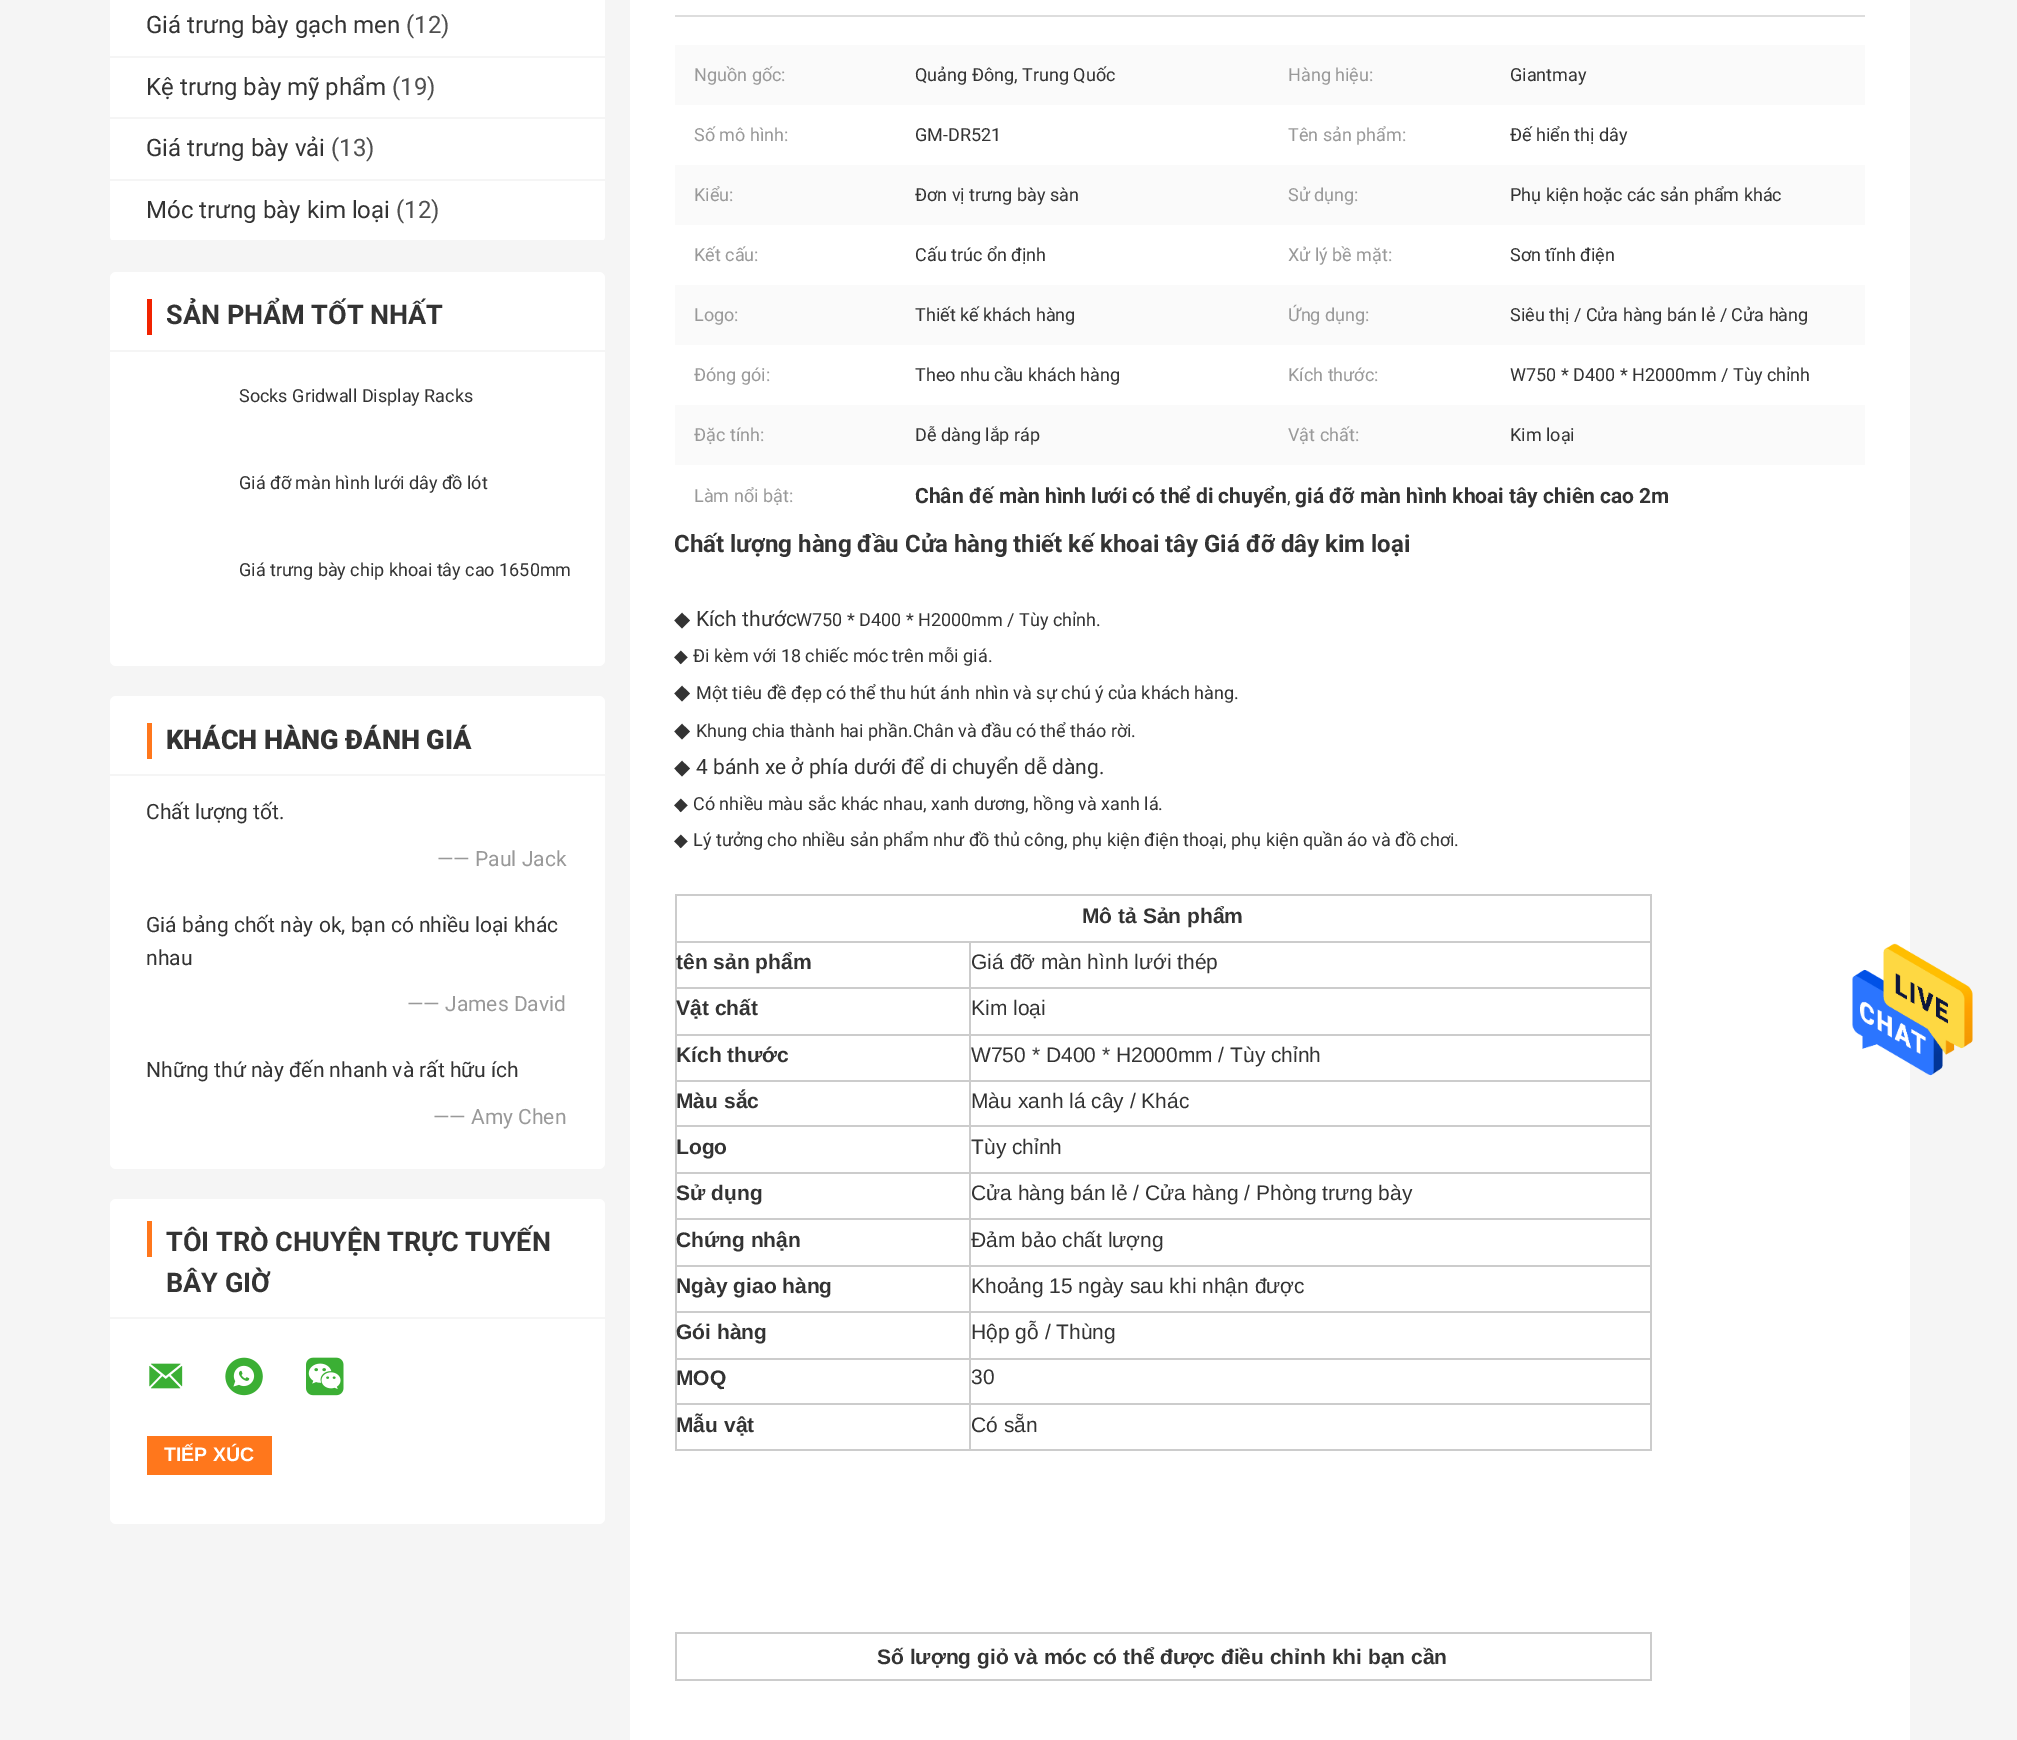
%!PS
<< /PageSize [2017 1740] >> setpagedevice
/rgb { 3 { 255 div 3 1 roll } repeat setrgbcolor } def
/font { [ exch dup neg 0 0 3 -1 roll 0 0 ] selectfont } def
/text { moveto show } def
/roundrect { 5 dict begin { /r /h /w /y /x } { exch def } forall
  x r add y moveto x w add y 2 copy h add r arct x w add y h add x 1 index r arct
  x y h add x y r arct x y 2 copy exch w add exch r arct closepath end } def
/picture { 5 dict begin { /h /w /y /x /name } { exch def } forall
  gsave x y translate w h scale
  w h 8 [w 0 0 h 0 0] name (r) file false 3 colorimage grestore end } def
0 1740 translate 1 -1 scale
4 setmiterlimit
245 245 245 rgb
0 0 2017 1740 rectfill
255 255 255 rgb
110 -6 495 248 6 roundrect fill
245 245 245 rgb
110 56 495 2 rectfill
110 117 495 2 rectfill
110 179 495 2 rectfill
110 240 495 2 rectfill
255 255 255 rgb
110 272 495 394 6 roundrect fill
245 245 245 rgb
110 350 495 2 rectfill
241 35 0 rgb
147 299 5 36 rectfill
255 255 255 rgb
110 696 495 473 6 roundrect fill
245 245 245 rgb
110 774 495 2 rectfill
255 119 28 rgb
147 723 5 36 rectfill
255 255 255 rgb
110 1199 495 325 6 roundrect fill
245 245 245 rgb
110 1317 495 2 rectfill
255 119 28 rgb
147 1221 5 36 rectfill
(img_01.rgb) 149 1363 34 26 picture
(img_02.rgb) 225 1357 38 39 picture
(img_03.rgb) 306 1357 38 39 picture
147 1436 125 39 rectfill
255 255 255 rgb
630 0 1280 1740 rectfill
221 221 221 rgb
675 15 1190 2 rectfill
250 250 250 rgb
675 45 1190 60 rectfill
675 165 1190 60 rectfill
675 285 1190 60 rectfill
675 405 1190 60 rectfill
204 204 204 rgb
675 894 977 2 rectfill
1650 894 2 557 rectfill
675 1449 977 2 rectfill
675 894 2 557 rectfill
969 941 683 2 rectfill
969 987 683 2 rectfill
969 1034 683 2 rectfill
969 1080 683 2 rectfill
969 1125 683 2 rectfill
969 1172 683 2 rectfill
969 1218 683 2 rectfill
969 1265 683 2 rectfill
969 1311 683 2 rectfill
969 1358 683 2 rectfill
969 1403 683 2 rectfill
969 1403 2 48 rectfill
675 1403 296 2 rectfill
969 1358 2 46 rectfill
675 1358 296 2 rectfill
969 1311 2 48 rectfill
675 1311 296 2 rectfill
969 1265 2 48 rectfill
675 1265 296 2 rectfill
969 1218 2 48 rectfill
675 1218 296 2 rectfill
969 1172 2 48 rectfill
675 1172 296 2 rectfill
969 1125 2 48 rectfill
675 1125 296 2 rectfill
969 1080 2 47 rectfill
675 1080 296 2 rectfill
969 1034 2 48 rectfill
675 1034 296 2 rectfill
969 987 2 48 rectfill
675 987 296 2 rectfill
969 941 2 48 rectfill
675 941 296 2 rectfill
675 1632 977 2 rectfill
1650 1632 2 48 rectfill
675 1679 977 2 rectfill
675 1632 2 48 rectfill
(img_04.rgb) 1852 943 121 133 picture
/Roboto-Regular 24 font
51 51 51 rgb
(Giá trưng bày gạch men) 146 33 text
78 78 78 rgb
(\(12\)) 406 33 text
51 51 51 rgb
(Kệ trưng bày mỹ phẩm) 146 95 text
78 78 78 rgb
(\(19\)) 392 95 text
51 51 51 rgb
(Giá trưng bày vải) 146 156 text
78 78 78 rgb
(\(13\)) 331 156 text
51 51 51 rgb
(Móc trưng bày kim loại) 146 218 text
78 78 78 rgb
(\(12\)) 396 218 text
/Roboto-Bold 27 font
51 51 51 rgb
(SẢN PHẨM TỐT NHẤT) 166 324 text
/Roboto-Regular 18 font
(Socks Gridwall Display Racks) 239 402 text
(Giá đỡ màn hình lưới dây đồ lót) 239 489 text
(Giá trưng bày chip khoai tây cao 1650mm) 239 576 text
/Roboto-Black 27 font
(KHÁCH HÀNG ĐÁNH GIÁ) 166 749 text
/Roboto-Regular 21 font
(Chất lượng tốt.) 146 819 text
153 153 153 rgb
(—— Paul Jack) 437 866 text
51 51 51 rgb
(Giá bảng chốt này ok, bạn có nhiều loại khác) 146 932 text
(nhau) 146 965 text
153 153 153 rgb
(—— James David) 407 1011 text
51 51 51 rgb
(Những thứ này đến nhanh và rất hữu ích) 146 1077 text
153 153 153 rgb
(—— Amy Chen) 433 1124 text
/Roboto-Bold 27 font
51 51 51 rgb
(TÔI TRÒ CHUYỆN TRỰC TUYẾN) 166 1251 text
(BÂY GIỜ) 166 1292 text
/LiberationSans-Bold 19.5 font
255 255 255 rgb
(TIẾP XÚC) 164 1461 text
/Roboto-Regular 18 font
153 153 153 rgb
(Nguồn gốc:) 694 81 text
51 51 51 rgb
(Quảng Đông, Trung Quốc) 915 81 text
153 153 153 rgb
(Hàng hiệu:) 1288 81 text
51 51 51 rgb
(Giantmay) 1510 81 text
153 153 153 rgb
(Số mô hình:) 694 141 text
51 51 51 rgb
(GM-DR521) 915 141 text
153 153 153 rgb
(Tên sản phẩm:) 1288 141 text
51 51 51 rgb
(Đế hiển thị dây) 1510 141 text
153 153 153 rgb
(Kiểu:) 694 201 text
51 51 51 rgb
(Đơn vị trưng bày sàn) 915 201 text
153 153 153 rgb
(Sử dụng:) 1288 201 text
51 51 51 rgb
(Phụ kiện hoặc các sản phẩm khác) 1510 201 text
153 153 153 rgb
(Kết cấu:) 694 261 text
51 51 51 rgb
(Cấu trúc ổn định) 915 261 text
153 153 153 rgb
(Xử lý bề mặt:) 1288 261 text
51 51 51 rgb
(Sơn tĩnh điện) 1510 261 text
153 153 153 rgb
(Logo:) 694 321 text
51 51 51 rgb
(Thiết kế khách hàng) 915 321 text
153 153 153 rgb
(Ứng dụng:) 1288 321 text
51 51 51 rgb
(Siêu thị / Cửa hàng bán lẻ / Cửa hàng) 1510 321 text
153 153 153 rgb
(Đóng gói:) 694 381 text
51 51 51 rgb
(Theo nhu cầu khách hàng) 915 381 text
153 153 153 rgb
(Kích thước:) 1288 381 text
51 51 51 rgb
(W750 * D400 * H2000mm / Tùy chỉnh) 1510 381 text
153 153 153 rgb
(Đặc tính:) 694 441 text
51 51 51 rgb
(Dễ dàng lắp ráp) 915 441 text
153 153 153 rgb
(Vật chất:) 1288 441 text
51 51 51 rgb
(Kim loại) 1510 441 text
153 153 153 rgb
(Làm nổi bật:) 694 502 text
/Roboto-Bold 21 font
51 51 51 rgb
(Chân đế màn hình lưới có thể di chuyển) 915 503 text
/Roboto-Regular 18 font
(,) 1287 503 text
/Roboto-Bold 21 font
(giá đỡ màn hình khoai tây chiên cao 2m) 1295 503 text
/Roboto-Bold 24 font
(Chất lượng hàng đầu Cửa hàng thiết kế khoai tây Giá đỡ dây kim loại) 674 552 text
/DejaVuSans-Regular 21 font
(◆) 674 626 text
/Roboto-Regular 21 font
(Kích thước) 696 626 text
/Roboto-Regular 18 font
(W750 * D400 * H2000mm / Tùy chỉnh.) 796 626 text
/DejaVuSans-Regular 18 font
(◆) 674 662 text
/Roboto-Regular 18 font
(Đi kèm với 18 chiếc móc trên mỗi giá.) 693 662 text
/DejaVuSans-Regular 21 font
(◆) 674 699 text
/Roboto-Regular 18 font
(Một tiêu đề đẹp có thể thu hút ánh nhìn và sự chú ý của khách hàng.) 696 699 text
/DejaVuSans-Regular 21 font
(◆) 674 737 text
/Roboto-Regular 18 font
(Khung chia thành hai phần.Chân và đầu có thể tháo rời.) 696 737 text
/DejaVuSans-Regular 21 font
(◆) 674 774 text
/Roboto-Regular 21 font
(4 bánh xe ở phía dưới để di chuyển dễ dàng.) 696 774 text
/DejaVuSans-Regular 18 font
(◆) 674 810 text
/Roboto-Regular 18 font
(Có nhiều màu sắc khác nhau, xanh dương, hồng và xanh lá.) 693 810 text
/DejaVuSans-Regular 18 font
(◆) 674 846 text
/Roboto-Regular 18 font
(Lý tưởng cho nhiều sản phẩm như đồ thủ công, phụ kiện điện thoại, phụ kiện quần áo và đồ chơi.) 693 846 text
/LiberationSans-Bold 21 font
(Mô tả Sản phẩm) 1082 923 text
(tên sản phẩm) 676 969 text
/LiberationSans-Regular 21 font
(Giá đỡ màn hình lưới thép) 971 969 text
/LiberationSans-Bold 21 font
(Vật chất) 676 1015 text
/LiberationSans-Regular 21 font
(Kim loại) 971 1015 text
/LiberationSans-Bold 21 font
(Kích thước) 676 1062 text
/LiberationSans-Regular 21 font
(W750 * D400 * H2000mm / Tùy chỉnh) 971 1062 text
/LiberationSans-Bold 21 font
(Màu sắc) 676 1108 text
/LiberationSans-Regular 21 font
(Màu xanh lá cây / Khác) 971 1108 text
/LiberationSans-Bold 21 font
(Logo) 676 1154 text
/LiberationSans-Regular 21 font
(Tùy chỉnh) 971 1154 text
/LiberationSans-Bold 21 font
(Sử dụng) 676 1200 text
/LiberationSans-Regular 21 font
(Cửa hàng bán lẻ / Cửa hàng / Phòng trưng bày) 971 1200 text
/LiberationSans-Bold 21 font
(Chứng nhận) 676 1247 text
/LiberationSans-Regular 21 font
(Đảm bảo chất lượng) 971 1247 text
/LiberationSans-Bold 21 font
(Ngày giao hàng) 676 1293 text
/LiberationSans-Regular 21 font
(Khoảng 15 ngày sau khi nhận được) 971 1293 text
/LiberationSans-Bold 21 font
(Gói hàng) 676 1339 text
/LiberationSans-Regular 21 font
(Hộp gỗ / Thùng) 971 1339 text
/LiberationSans-Bold 21 font
(MOQ) 676 1385 text
/LiberationSans-Regular 21 font
(30) 971 1384 text
/LiberationSans-Bold 21 font
(Mẫu vật) 676 1432 text
/LiberationSans-Regular 21 font
(Có sẵn) 971 1432 text
/LiberationSans-Bold 21 font
(Số lượng giỏ và móc có thể được điều chỉnh khi bạn cần) 877 1664 text
showpage
